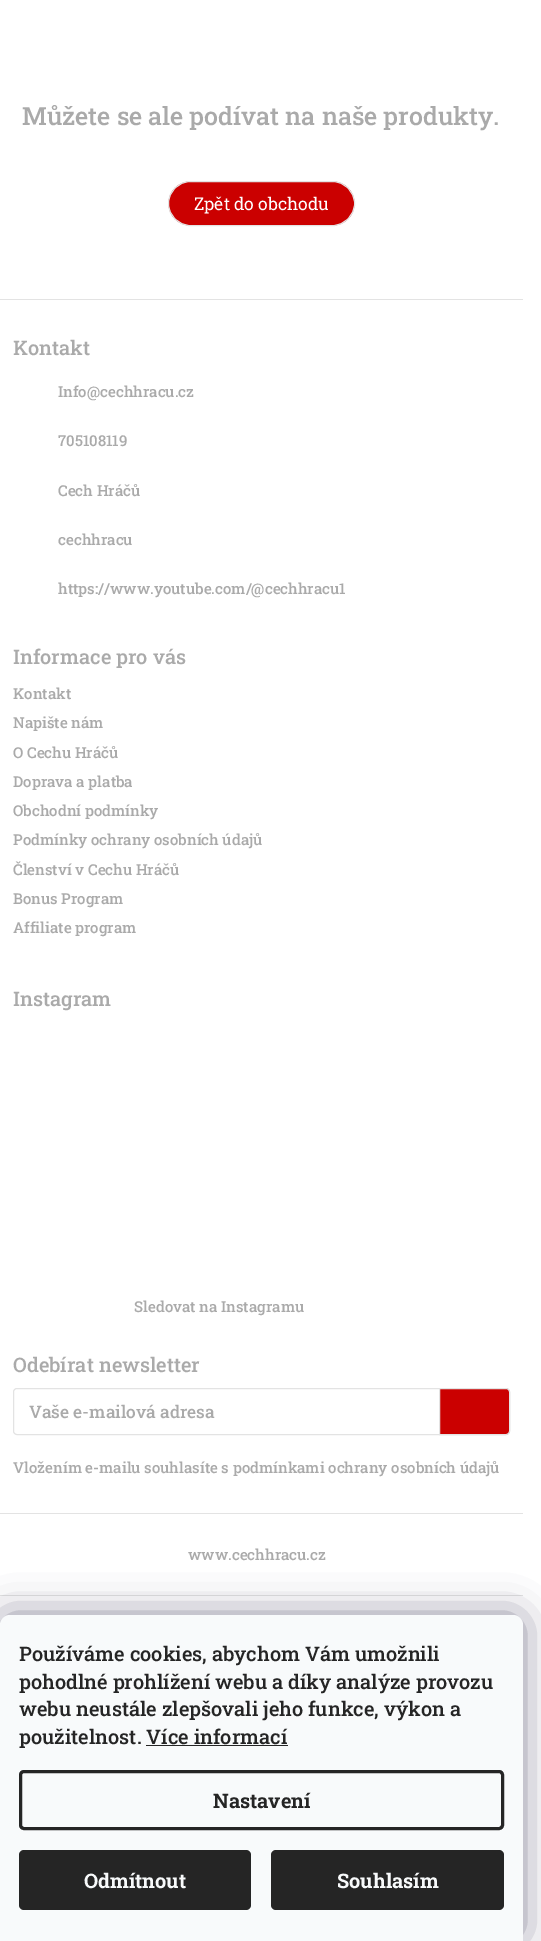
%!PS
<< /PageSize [541 1941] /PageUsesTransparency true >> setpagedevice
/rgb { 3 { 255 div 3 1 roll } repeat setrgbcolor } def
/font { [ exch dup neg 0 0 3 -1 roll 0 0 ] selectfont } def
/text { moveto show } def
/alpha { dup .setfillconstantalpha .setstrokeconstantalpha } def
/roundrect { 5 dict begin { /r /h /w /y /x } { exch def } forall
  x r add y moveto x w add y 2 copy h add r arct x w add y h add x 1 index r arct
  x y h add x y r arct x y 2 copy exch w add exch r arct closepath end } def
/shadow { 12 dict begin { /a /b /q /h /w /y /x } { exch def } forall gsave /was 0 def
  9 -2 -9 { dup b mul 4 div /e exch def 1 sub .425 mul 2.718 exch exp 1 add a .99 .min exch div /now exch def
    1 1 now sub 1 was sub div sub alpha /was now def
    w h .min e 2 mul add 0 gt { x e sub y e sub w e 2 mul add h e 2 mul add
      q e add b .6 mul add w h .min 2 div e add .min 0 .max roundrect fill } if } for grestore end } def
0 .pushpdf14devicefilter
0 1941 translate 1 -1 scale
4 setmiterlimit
255 255 255 rgb
0 0 541 1941 rectfill
203 0 0 rgb
168.5 181.5 186 44 22 roundrect gsave fill grestore
227 227 227 rgb
stroke
0 299 523 1 rectfill
13.5 1388.5 496 46 3.5 roundrect stroke
203 0 0 rgb
439.5 1388.5 moveto 66.5 0 rlineto 2 0 3.5 1.5 3.5 3.5 rcurveto 0 39 rlineto 0 2 -1.5 3.5 -3.5 3.5 rcurveto -66.5 0 rlineto closepath gsave fill grestore
227 227 227 rgb
stroke
0 1513 523 1 rectfill
0 1595 523 1 rectfill
27 25 57 rgb
0 1615 523 326 10 19 0.5 shadow
248 250 251 rgb
10 1615 moveto 503 0 rlineto 5.5 0 10 4.5 10 10 rcurveto 0 316 rlineto -523 0 rlineto 0 -316 rlineto 0 -5.5 4.5 -10 10 -10 rcurveto closepath fill
37 37 37 rgb
146 1745 142 1 rectfill
3 setlinewidth
20.5 1771.5 482 57 3.5 roundrect stroke
19 1850 232 60 5 roundrect fill
271 1850 233 60 5 roundrect fill
/RobotoSlab-Medium 25 font
170 170 170 rgb
(Můžete se ale podívat na naše produkty.) 22 125 text
/RobotoSlab-Regular 17.5 font
255 255 255 rgb
(Zpět do obchodu) 194 210 text
/RobotoSlab-Medium 20 font
170 170 170 rgb
(Kontakt) 13 355 text
/RobotoSlab-Medium 15 font
(Info@cechhracu.cz) 58 397 text
(705108119) 58 446 text
(Cech Hráčů) 58 496 text
(cechhracu) 58 545 text
(https://www.youtube.com/@cechhracu1) 58 594 text
/RobotoSlab-Medium 20 font
(Informace pro vás) 13 664 text
/RobotoSlab-Medium 15 font
(Kontakt) 13 699 text
(Napište nám) 13 728 text
(O Cechu Hráčů) 13 758 text
(Doprava a platba) 13 787 text
(Obchodní podmínky) 13 816 text
(Podmínky ochrany osobních údajů) 13 845 text
(Členství v Cechu Hráčů) 13 875 text
(Bonus Program) 13 904 text
(Affiliate program) 13 933 text
/RobotoSlab-Medium 20 font
(Instagram) 13 1006 text
/RobotoSlab-Medium 15 font
(Sledovat na Instagramu) 134 1312 text
/RobotoSlab-Medium 20 font
(Odebírat newsletter) 13 1372 text
/RobotoSlab-Medium 17.25 font
(Vaše e-mailová adresa) 29 1418 text
/RobotoSlab-Medium 15 font
(Vložením e-mailu souhlasíte s podmínkami ochrany osobních údajů) 13 1473 text
(www.cechhracu.cz) 188 1560 text
/RobotoSlab-Medium 20 font
37 37 37 rgb
(Používáme cookies, abychom Vám umožnili) 19 1661 text
(pohodlné prohlížení webu a díky analýze provozu) 19 1689 text
(webu neustále zlepšovali jeho funkce, výkon a) 19 1716 text
(použitelnost. Více informací) 19 1744 text
/RobotoSlab-Bold 20 font
(Nastavení) 213 1808 text
248 250 251 rgb
(Odmítnout) 84 1888 text
(Souhlasím) 337 1888 text
.poppdf14devicefilter showpage
